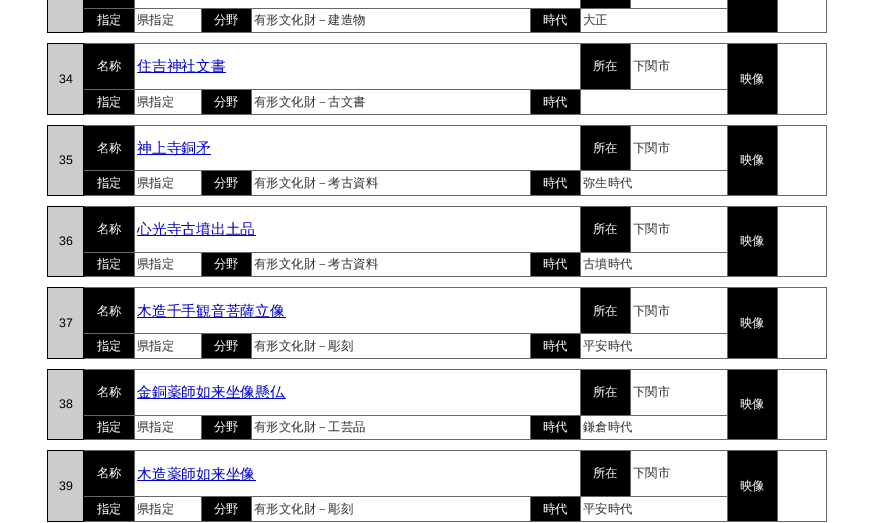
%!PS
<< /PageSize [873 523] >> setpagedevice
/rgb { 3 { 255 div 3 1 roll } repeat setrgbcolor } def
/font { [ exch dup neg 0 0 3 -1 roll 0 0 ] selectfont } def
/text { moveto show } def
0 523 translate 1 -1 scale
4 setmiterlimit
255 255 255 rgb
0 0 873 523 rectfill
0 0 0 rgb
47 32 36 1 rectfill
47 0 1 33 rectfill
204 204 204 rgb
48 0 35 32 rectfill
102 102 102 rgb
580 8 148 1 rectfill
580 32 148 1 rectfill
580 8 1 25 rectfill
530 8 51 1 rectfill
530 32 51 1 rectfill
530 8 1 25 rectfill
251 8 280 1 rectfill
251 32 280 1 rectfill
251 8 1 25 rectfill
201 8 51 1 rectfill
201 32 51 1 rectfill
201 8 1 25 rectfill
134 8 68 1 rectfill
134 32 68 1 rectfill
134 8 1 25 rectfill
83 8 52 1 rectfill
83 32 52 1 rectfill
0 0 0 rgb
83 0 1 33 rectfill
84 0 50 8 rectfill
102 102 102 rgb
134 0 1 9 rectfill
0 0 0 rgb
580 0 50 8 rectfill
102 102 102 rgb
580 0 1 9 rectfill
630 0 1 9 rectfill
0 0 0 rgb
728 0 49 32 rectfill
102 102 102 rgb
826 0 1 33 rectfill
777 32 50 1 rectfill
777 0 1 33 rectfill
727 32 51 1 rectfill
727 0 1 33 rectfill
0 0 0 rgb
84 9 50 23 rectfill
202 9 49 23 rectfill
531 9 49 23 rectfill
47 114 36 1 rectfill
47 43 1 72 rectfill
84 44 50 45 rectfill
102 102 102 rgb
777 43 50 1 rectfill
826 43 1 72 rectfill
777 114 50 1 rectfill
777 43 1 72 rectfill
727 43 51 1 rectfill
580 114 148 1 rectfill
727 114 51 1 rectfill
580 89 148 1 rectfill
727 43 1 72 rectfill
630 43 98 1 rectfill
630 43 1 47 rectfill
580 43 51 1 rectfill
580 89 1 26 rectfill
530 89 51 1 rectfill
580 43 1 47 rectfill
134 43 447 1 rectfill
530 114 51 1 rectfill
530 89 1 26 rectfill
251 89 280 1 rectfill
251 114 280 1 rectfill
251 89 1 26 rectfill
201 89 51 1 rectfill
201 114 51 1 rectfill
201 89 1 26 rectfill
134 89 68 1 rectfill
134 114 68 1 rectfill
134 89 1 26 rectfill
83 89 52 1 rectfill
134 43 1 47 rectfill
83 43 52 1 rectfill
0 0 205 rgb
137 72 89 1 rectfill
0 0 0 rgb
581 44 49 45 rectfill
204 204 204 rgb
48 44 35 70 rectfill
0 0 0 rgb
47 43 37 1 rectfill
102 102 102 rgb
83 114 52 1 rectfill
0 0 0 rgb
83 43 1 72 rectfill
728 44 49 70 rectfill
84 90 50 24 rectfill
202 90 49 24 rectfill
531 90 49 24 rectfill
47 195 36 1 rectfill
47 125 1 71 rectfill
84 126 50 44 rectfill
102 102 102 rgb
777 125 50 1 rectfill
826 125 1 71 rectfill
777 195 50 1 rectfill
777 125 1 71 rectfill
727 125 51 1 rectfill
580 195 148 1 rectfill
727 195 51 1 rectfill
580 170 148 1 rectfill
727 125 1 71 rectfill
630 125 98 1 rectfill
630 125 1 46 rectfill
580 125 51 1 rectfill
580 170 1 26 rectfill
530 170 51 1 rectfill
580 125 1 46 rectfill
134 125 447 1 rectfill
530 195 51 1 rectfill
530 170 1 26 rectfill
251 170 280 1 rectfill
251 195 280 1 rectfill
251 170 1 26 rectfill
201 170 51 1 rectfill
201 195 51 1 rectfill
201 170 1 26 rectfill
134 170 68 1 rectfill
134 195 68 1 rectfill
134 170 1 26 rectfill
83 170 52 1 rectfill
134 125 1 46 rectfill
83 125 52 1 rectfill
0 0 205 rgb
137 154 74 1 rectfill
0 0 0 rgb
581 126 49 44 rectfill
204 204 204 rgb
48 126 35 69 rectfill
0 0 0 rgb
47 125 37 1 rectfill
102 102 102 rgb
83 195 52 1 rectfill
0 0 0 rgb
83 125 1 71 rectfill
728 126 49 69 rectfill
84 171 50 24 rectfill
202 171 49 24 rectfill
531 171 49 24 rectfill
47 276 36 1 rectfill
47 206 1 71 rectfill
84 207 50 45 rectfill
102 102 102 rgb
777 206 50 1 rectfill
826 206 1 71 rectfill
777 276 50 1 rectfill
777 206 1 71 rectfill
727 206 51 1 rectfill
580 276 148 1 rectfill
727 276 51 1 rectfill
580 252 148 1 rectfill
727 206 1 71 rectfill
630 206 98 1 rectfill
630 206 1 47 rectfill
580 206 51 1 rectfill
580 252 1 25 rectfill
530 252 51 1 rectfill
580 206 1 47 rectfill
134 206 447 1 rectfill
530 276 51 1 rectfill
530 252 1 25 rectfill
251 252 280 1 rectfill
251 276 280 1 rectfill
251 252 1 25 rectfill
201 252 51 1 rectfill
201 276 51 1 rectfill
201 252 1 25 rectfill
134 252 68 1 rectfill
134 276 68 1 rectfill
134 252 1 25 rectfill
83 252 52 1 rectfill
134 206 1 47 rectfill
83 206 52 1 rectfill
0 0 205 rgb
137 235 119 1 rectfill
0 0 0 rgb
581 207 49 45 rectfill
204 204 204 rgb
48 207 35 69 rectfill
0 0 0 rgb
47 206 37 1 rectfill
102 102 102 rgb
83 276 52 1 rectfill
0 0 0 rgb
83 206 1 71 rectfill
728 207 49 69 rectfill
84 253 50 23 rectfill
202 253 49 23 rectfill
531 253 49 23 rectfill
47 358 36 1 rectfill
47 287 1 72 rectfill
84 288 50 45 rectfill
102 102 102 rgb
777 287 50 1 rectfill
826 287 1 72 rectfill
777 358 50 1 rectfill
777 287 1 72 rectfill
727 287 51 1 rectfill
580 358 148 1 rectfill
727 358 51 1 rectfill
580 333 148 1 rectfill
727 287 1 72 rectfill
630 287 98 1 rectfill
630 287 1 47 rectfill
580 287 51 1 rectfill
580 333 1 26 rectfill
530 333 51 1 rectfill
580 287 1 47 rectfill
134 287 447 1 rectfill
530 358 51 1 rectfill
530 333 1 26 rectfill
251 333 280 1 rectfill
251 358 280 1 rectfill
251 333 1 26 rectfill
201 333 51 1 rectfill
201 358 51 1 rectfill
201 333 1 26 rectfill
134 333 68 1 rectfill
134 358 68 1 rectfill
134 333 1 26 rectfill
83 333 52 1 rectfill
134 287 1 47 rectfill
83 287 52 1 rectfill
0 0 205 rgb
137 317 149 1 rectfill
0 0 0 rgb
581 288 49 45 rectfill
204 204 204 rgb
48 288 35 70 rectfill
0 0 0 rgb
47 287 37 1 rectfill
102 102 102 rgb
83 358 52 1 rectfill
0 0 0 rgb
83 287 1 72 rectfill
728 288 49 70 rectfill
84 334 50 24 rectfill
202 334 49 24 rectfill
531 334 49 24 rectfill
47 439 36 1 rectfill
47 369 1 71 rectfill
84 370 50 45 rectfill
102 102 102 rgb
777 369 50 1 rectfill
826 369 1 71 rectfill
777 439 50 1 rectfill
777 369 1 71 rectfill
727 369 51 1 rectfill
580 439 148 1 rectfill
727 439 51 1 rectfill
580 415 148 1 rectfill
727 369 1 71 rectfill
630 369 98 1 rectfill
630 369 1 47 rectfill
580 369 51 1 rectfill
580 415 1 25 rectfill
530 415 51 1 rectfill
580 369 1 47 rectfill
134 369 447 1 rectfill
530 439 51 1 rectfill
530 415 1 25 rectfill
251 415 280 1 rectfill
251 439 280 1 rectfill
251 415 1 25 rectfill
201 415 51 1 rectfill
201 439 51 1 rectfill
201 415 1 25 rectfill
134 415 68 1 rectfill
134 439 68 1 rectfill
134 415 1 25 rectfill
83 415 52 1 rectfill
134 369 1 47 rectfill
83 369 52 1 rectfill
0 0 205 rgb
137 398 149 1 rectfill
0 0 0 rgb
581 370 49 45 rectfill
204 204 204 rgb
48 370 35 69 rectfill
0 0 0 rgb
47 369 37 1 rectfill
102 102 102 rgb
83 439 52 1 rectfill
0 0 0 rgb
83 369 1 71 rectfill
728 370 49 69 rectfill
84 416 50 23 rectfill
202 416 49 23 rectfill
531 416 49 23 rectfill
47 521 36 1 rectfill
47 450 1 72 rectfill
84 451 50 45 rectfill
102 102 102 rgb
777 450 50 1 rectfill
826 450 1 72 rectfill
777 521 50 1 rectfill
777 450 1 72 rectfill
727 450 51 1 rectfill
580 521 148 1 rectfill
727 521 51 1 rectfill
580 496 148 1 rectfill
727 450 1 72 rectfill
630 450 98 1 rectfill
630 450 1 47 rectfill
580 450 51 1 rectfill
580 496 1 26 rectfill
530 496 51 1 rectfill
580 450 1 47 rectfill
134 450 447 1 rectfill
530 521 51 1 rectfill
530 496 1 26 rectfill
251 496 280 1 rectfill
251 521 280 1 rectfill
251 496 1 26 rectfill
201 496 51 1 rectfill
201 521 51 1 rectfill
201 496 1 26 rectfill
134 496 68 1 rectfill
134 521 68 1 rectfill
134 496 1 26 rectfill
83 496 52 1 rectfill
134 450 1 47 rectfill
83 450 52 1 rectfill
0 0 205 rgb
137 480 119 1 rectfill
0 0 0 rgb
581 451 49 45 rectfill
204 204 204 rgb
48 451 35 70 rectfill
0 0 0 rgb
47 450 37 1 rectfill
102 102 102 rgb
83 521 52 1 rectfill
0 0 0 rgb
83 450 1 72 rectfill
728 451 49 70 rectfill
84 497 50 24 rectfill
202 497 49 24 rectfill
531 497 49 24 rectfill
/WenQuanYiZenHei-Medium 12.4 font
255 255 255 rgb
(指定) 97 24 text
51 51 51 rgb
(県指定) 137 24 text
255 255 255 rgb
(分野) 214 24 text
51 51 51 rgb
(有形文化財－建造物) 254 24 text
255 255 255 rgb
(時代) 543 24 text
51 51 51 rgb
(大正) 583 24 text
255 255 255 rgb
(名称) 97 70 text
/WenQuanYiZenHei-Medium 14.75 font
0 0 205 rgb
(住吉神社文書) 137 71 text
/WenQuanYiZenHei-Medium 12.4 font
255 255 255 rgb
(所在) 593 70 text
51 51 51 rgb
(下関市) 633 70 text
/LiberationSans-Regular 12.4 font
0 0 0 rgb
(34) 59 83 text
/WenQuanYiZenHei-Medium 12.4 font
255 255 255 rgb
(映像) 740 83 text
(指定) 97 106 text
51 51 51 rgb
(県指定) 137 106 text
255 255 255 rgb
(分野) 214 106 text
51 51 51 rgb
(有形文化財－古文書) 254 106 text
255 255 255 rgb
(時代) 543 106 text
(名称) 97 152 text
/WenQuanYiZenHei-Medium 14.75 font
0 0 205 rgb
(神上寺銅矛) 137 153 text
/WenQuanYiZenHei-Medium 12.4 font
255 255 255 rgb
(所在) 593 152 text
51 51 51 rgb
(下関市) 633 152 text
/LiberationSans-Regular 12.4 font
0 0 0 rgb
(35) 59 164 text
/WenQuanYiZenHei-Medium 12.4 font
255 255 255 rgb
(映像) 740 164 text
(指定) 97 187 text
51 51 51 rgb
(県指定) 137 187 text
255 255 255 rgb
(分野) 214 187 text
51 51 51 rgb
(有形文化財－考古資料) 254 187 text
255 255 255 rgb
(時代) 543 187 text
51 51 51 rgb
(弥生時代) 583 187 text
255 255 255 rgb
(名称) 97 233 text
/WenQuanYiZenHei-Medium 14.75 font
0 0 205 rgb
(心光寺古墳出土品) 137 234 text
/WenQuanYiZenHei-Medium 12.4 font
255 255 255 rgb
(所在) 593 233 text
51 51 51 rgb
(下関市) 633 233 text
/LiberationSans-Regular 12.4 font
0 0 0 rgb
(36) 59 245 text
/WenQuanYiZenHei-Medium 12.4 font
255 255 255 rgb
(映像) 740 245 text
(指定) 97 268 text
51 51 51 rgb
(県指定) 137 268 text
255 255 255 rgb
(分野) 214 268 text
51 51 51 rgb
(有形文化財－考古資料) 254 268 text
255 255 255 rgb
(時代) 543 268 text
51 51 51 rgb
(古墳時代) 583 268 text
255 255 255 rgb
(名称) 97 315 text
/WenQuanYiZenHei-Medium 14.75 font
0 0 205 rgb
(木造千手観音菩薩立像) 137 316 text
/WenQuanYiZenHei-Medium 12.4 font
255 255 255 rgb
(所在) 593 315 text
51 51 51 rgb
(下関市) 633 315 text
/LiberationSans-Regular 12.4 font
0 0 0 rgb
(37) 59 327 text
/WenQuanYiZenHei-Medium 12.4 font
255 255 255 rgb
(映像) 740 327 text
(指定) 97 350 text
51 51 51 rgb
(県指定) 137 350 text
255 255 255 rgb
(分野) 214 350 text
51 51 51 rgb
(有形文化財－彫刻) 254 350 text
255 255 255 rgb
(時代) 543 350 text
51 51 51 rgb
(平安時代) 583 350 text
255 255 255 rgb
(名称) 97 396 text
/WenQuanYiZenHei-Medium 14.75 font
0 0 205 rgb
(金銅薬師如来坐像懸仏) 137 397 text
/WenQuanYiZenHei-Medium 12.4 font
255 255 255 rgb
(所在) 593 396 text
51 51 51 rgb
(下関市) 633 396 text
/LiberationSans-Regular 12.4 font
0 0 0 rgb
(38) 59 408 text
/WenQuanYiZenHei-Medium 12.4 font
255 255 255 rgb
(映像) 740 408 text
(指定) 97 431 text
51 51 51 rgb
(県指定) 137 431 text
255 255 255 rgb
(分野) 214 431 text
51 51 51 rgb
(有形文化財－工芸品) 254 431 text
255 255 255 rgb
(時代) 543 431 text
51 51 51 rgb
(鎌倉時代) 583 431 text
255 255 255 rgb
(名称) 97 477 text
/WenQuanYiZenHei-Medium 14.75 font
0 0 205 rgb
(木造薬師如来坐像) 137 479 text
/WenQuanYiZenHei-Medium 12.4 font
255 255 255 rgb
(所在) 593 477 text
51 51 51 rgb
(下関市) 633 477 text
/LiberationSans-Regular 12.4 font
0 0 0 rgb
(39) 59 490 text
/WenQuanYiZenHei-Medium 12.4 font
255 255 255 rgb
(映像) 740 490 text
(指定) 97 513 text
51 51 51 rgb
(県指定) 137 513 text
255 255 255 rgb
(分野) 214 513 text
51 51 51 rgb
(有形文化財－彫刻) 254 513 text
255 255 255 rgb
(時代) 543 513 text
51 51 51 rgb
(平安時代) 583 513 text
showpage
